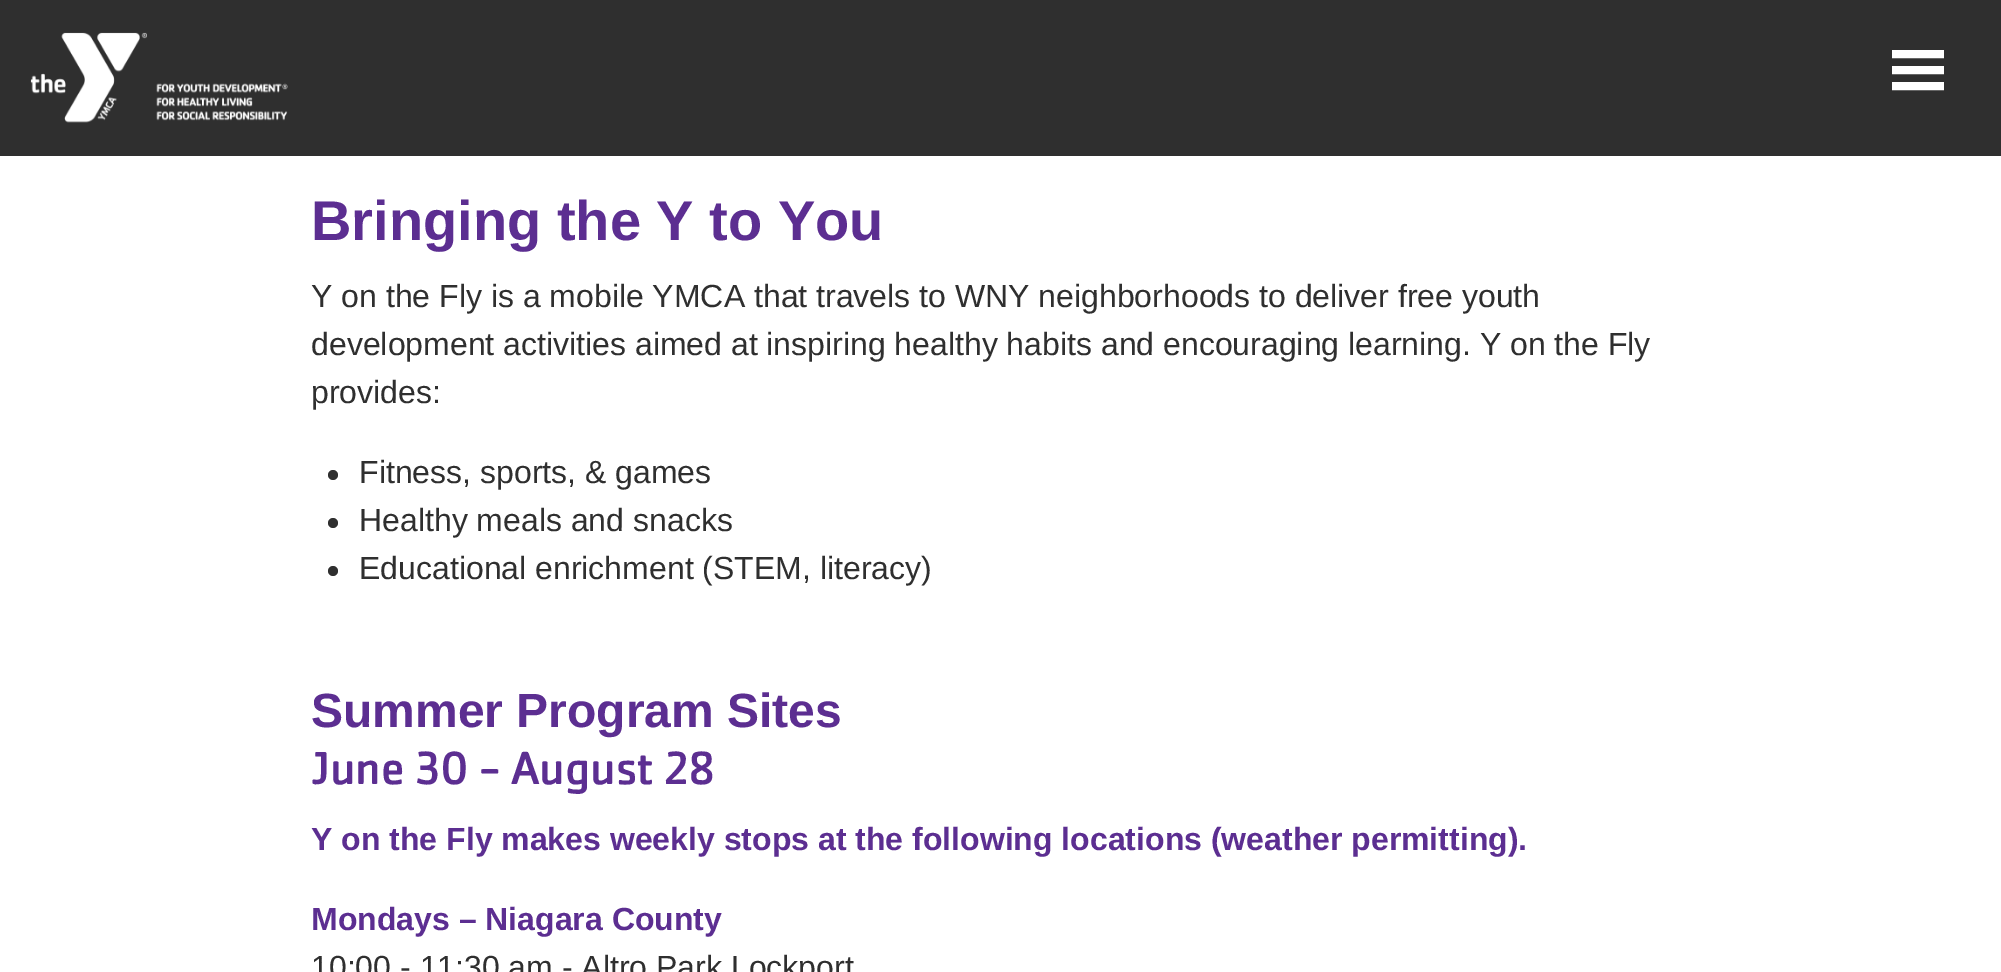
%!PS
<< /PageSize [2001 972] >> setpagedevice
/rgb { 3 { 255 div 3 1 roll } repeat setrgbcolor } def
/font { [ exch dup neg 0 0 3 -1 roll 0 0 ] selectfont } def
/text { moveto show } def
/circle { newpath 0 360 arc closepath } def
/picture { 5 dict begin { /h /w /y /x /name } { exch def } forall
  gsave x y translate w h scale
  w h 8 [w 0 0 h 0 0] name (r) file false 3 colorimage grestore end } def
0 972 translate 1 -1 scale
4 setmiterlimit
255 255 255 rgb
0 0 2001 972 rectfill
47 47 47 rgb
0 0 2001 156 rectfill
(img_01.rgb) 30 32 258 91 picture
255 255 255 rgb
8 setlinewidth
2 setlinecap
1896 54 moveto 44 0 rlineto 1896 70 moveto 44 0 rlineto 1896 86 moveto 44 0 rlineto stroke
47 47 47 rgb
333 475 5 circle fill
333 523 5 circle fill
333 571 5 circle fill
/LiberationSans-Bold 56 font
92 46 145 rgb
(Bringing the Y to You) 311 240 text
/LiberationSans-Regular 32 font
47 47 47 rgb
(Y on the Fly is a mobile YMCA that travels to WNY neighborhoods to deliver free youth) 311 307 text
(development activities aimed at inspiring healthy habits and encouraging learning. Y on the Fly) 311 355 text
(provides:) 311 403 text
(Fitness, sports, & games) 359 483 text
(Healthy meals and snacks) 359 531 text
(Educational enrichment \(STEM, literacy\)) 359 579 text
/LiberationSans-Bold 48 font
92 46 145 rgb
(Summer Program Sites) 311 727 text
/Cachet-Regular 48 font
(June 30 - August 28) 311 784 text
/LiberationSans-Bold 32 font
(Y on the Fly makes weekly stops at the following locations \(weather permitting\).) 311 850 text
(Mondays – Niagara County) 311 930 text
/LiberationSans-Regular 32 font
47 47 47 rgb
(10:00 - 11:30 am - Altro Park Lockport) 311 978 text
showpage
